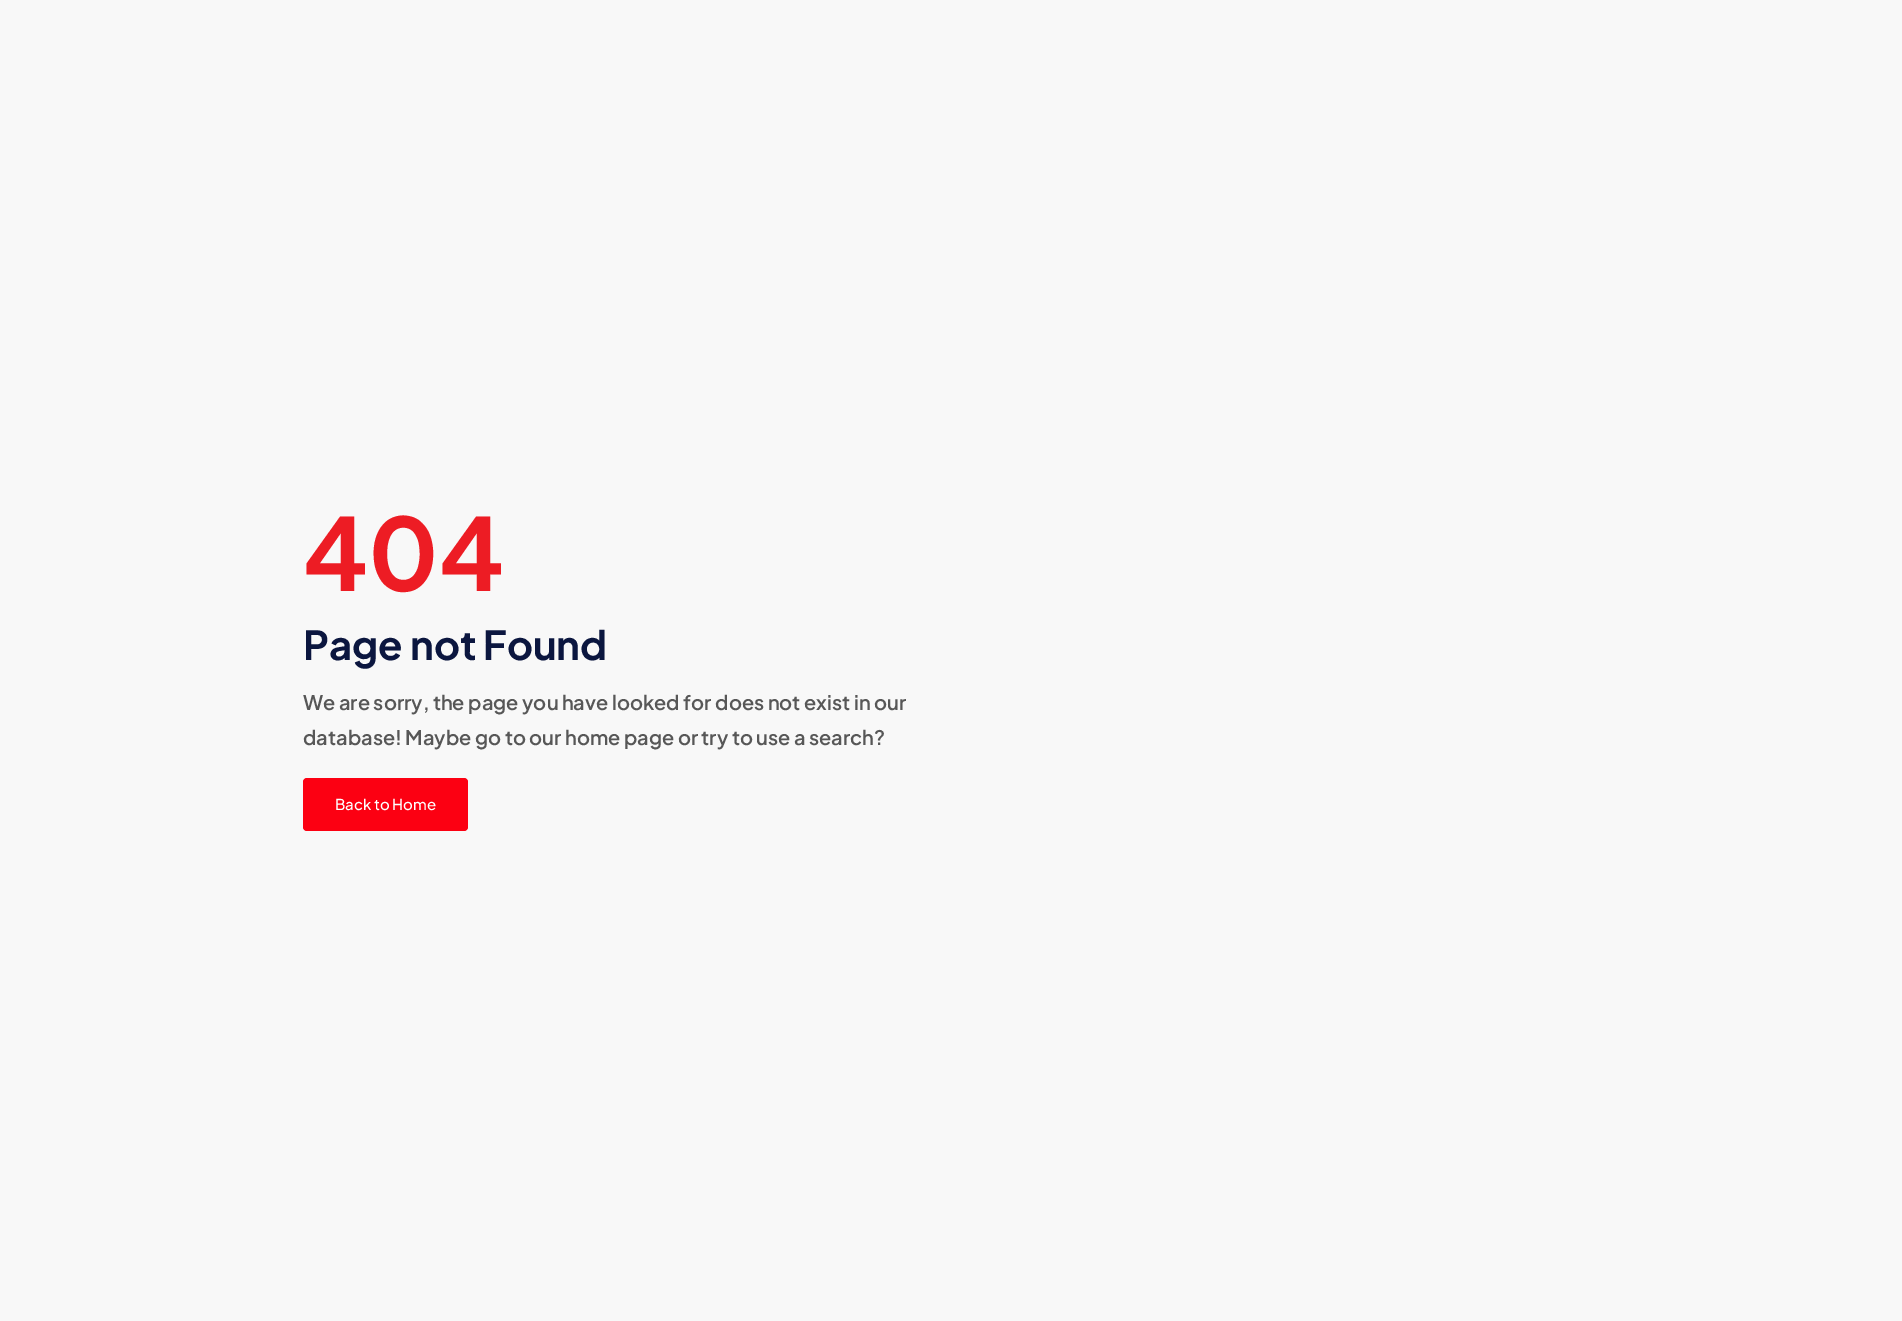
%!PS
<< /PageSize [1902 1321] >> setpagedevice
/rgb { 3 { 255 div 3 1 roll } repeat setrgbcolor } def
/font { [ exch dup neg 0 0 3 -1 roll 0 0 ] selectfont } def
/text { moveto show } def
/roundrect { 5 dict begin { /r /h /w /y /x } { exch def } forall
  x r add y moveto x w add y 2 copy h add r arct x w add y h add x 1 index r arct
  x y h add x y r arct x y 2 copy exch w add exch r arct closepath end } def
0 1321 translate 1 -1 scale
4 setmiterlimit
248 248 248 rgb
0 0 1902 1321 rectfill
252 0 18 rgb
303 778 165 53 4 roundrect fill
/PlusJakartaSans-Bold 100 font
237 28 36 rgb
(404) 303 591 text
/PlusJakartaSans-Bold 40 font
11 22 63 rgb
(Page not Found) 303 660 text
/PlusJakartaSans-SemiBold 20 font
87 87 87 rgb
(We are sorry, the page you have looked for does not exist in our) 303 710 text
(database! Maybe go to our home page or try to use a search?) 303 745 text
/PlusJakartaSans-Medium 15 font
255 255 255 rgb
(Back to Home) 335 810 text
showpage
